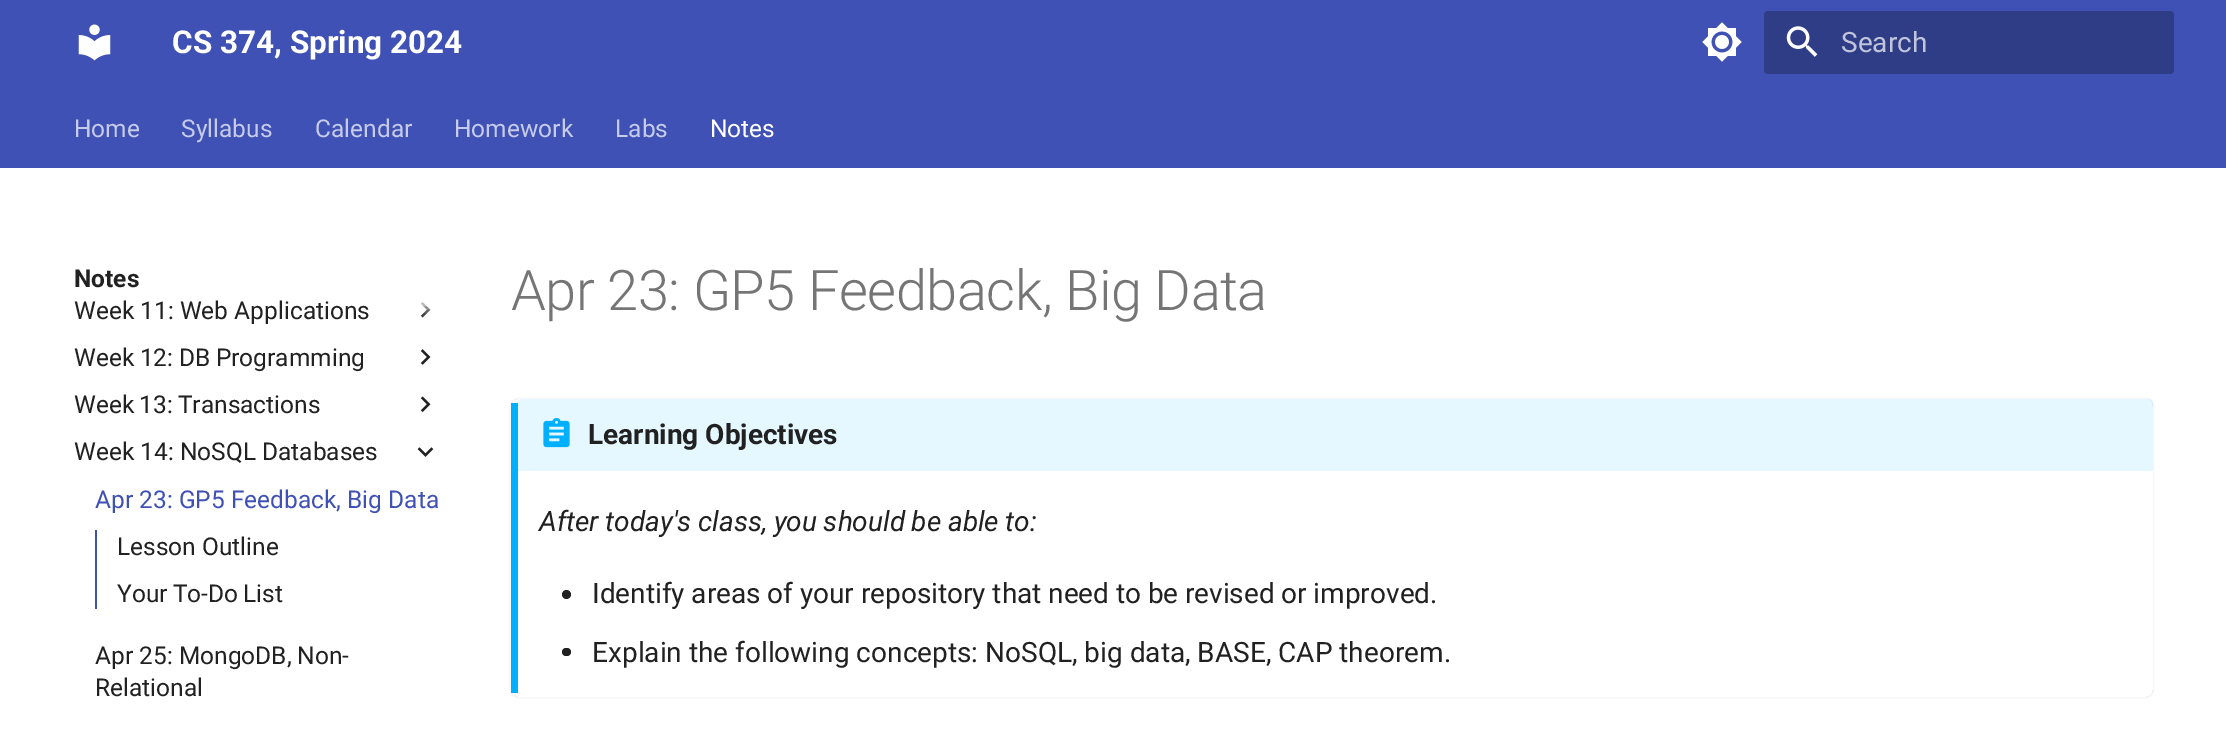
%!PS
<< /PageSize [2226 747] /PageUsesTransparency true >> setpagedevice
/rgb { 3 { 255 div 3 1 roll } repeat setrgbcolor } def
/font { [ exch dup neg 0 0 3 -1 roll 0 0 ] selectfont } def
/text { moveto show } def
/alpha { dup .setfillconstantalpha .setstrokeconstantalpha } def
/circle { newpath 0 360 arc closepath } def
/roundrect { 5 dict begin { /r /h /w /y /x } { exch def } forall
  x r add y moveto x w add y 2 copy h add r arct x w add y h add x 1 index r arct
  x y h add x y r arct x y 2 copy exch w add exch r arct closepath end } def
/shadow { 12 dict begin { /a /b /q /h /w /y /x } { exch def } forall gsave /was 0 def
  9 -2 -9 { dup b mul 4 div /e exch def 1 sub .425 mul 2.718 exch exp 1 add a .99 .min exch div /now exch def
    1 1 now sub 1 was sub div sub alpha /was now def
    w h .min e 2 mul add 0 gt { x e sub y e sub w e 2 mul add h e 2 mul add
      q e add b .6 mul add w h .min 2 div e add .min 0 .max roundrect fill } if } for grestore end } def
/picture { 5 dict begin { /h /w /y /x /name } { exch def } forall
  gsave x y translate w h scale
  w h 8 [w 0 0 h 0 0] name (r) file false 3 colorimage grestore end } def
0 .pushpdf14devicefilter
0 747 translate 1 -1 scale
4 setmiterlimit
255 255 255 rgb
0 0 2226 747 rectfill
64 81 181 rgb
0 0 2226 168 rectfill
(img_01.rgb) 78 24 33 37 picture
(img_02.rgb) 1702 22 40 40 picture
47 60 134 rgb
1764 11 410 63 4 roundrect fill
(img_03.rgb) 1786 26 32 31 picture
(img_04.rgb) 420 302 11 16 picture
gsave
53 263 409 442 rectclip
255 255 255 rgb
60 249 395 59 0 7 1 shadow
grestore
(img_05.rgb) 421 349 10 16 picture
(img_06.rgb) 420 396 11 16 picture
(img_07.rgb) 417 447 17 10 picture
64 81 181 rgb
95 530 2 79 rectfill
gsave
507 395 moveto 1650 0 rlineto 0 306 rlineto -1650 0 rlineto closepath 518 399 moveto 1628 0 rlineto 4 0 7 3 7 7 rcurveto 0 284 rlineto 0 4 -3 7 -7 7 rcurveto -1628 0 rlineto -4 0 -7 -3 -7 -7 rcurveto 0 -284 rlineto 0 -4 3 -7 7 -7 rcurveto closepath eoclip newpath
0 0 0 rgb
511 399 1642 298 7 1 0.1 shadow
grestore
255 255 255 rgb
518 399 moveto 1628 0 rlineto 3 0 6 3 6 7 rcurveto 0 284 rlineto 0 3 -3 6 -6 6 rcurveto -1628 0 rlineto closepath fill
0 176 255 rgb
511 403 7 290 rectfill
0.1 alpha
522 399 moveto 1627 0 rlineto 2 0 4 2 4 4 rcurveto 0 68 rlineto -1635 0 rlineto 0 -68 rlineto 0 -2 2 -4 4 -4 rcurveto closepath fill
1 alpha
(img_08.rgb) 543 418 27 30 picture
33 33 33 rgb
566.5 594.5 4.5 circle fill
562 648 9 8 4 roundrect fill
/Roboto-Bold 31.5 font
255 255 255 rgb
(CS 374, Spring 2024) 172 53 text
/Roboto-Regular 28 font
193 197 219 rgb
(Search) 1841 52 text
/Roboto-Regular 24.5 font
198 203 233 rgb
(Home) 74 137 text
(Syllabus) 181 137 text
(Calendar) 315 137 text
(Homework) 454 137 text
(Labs) 615 137 text
255 255 255 rgb
(Notes) 710 137 text
/Roboto-Bold 24.5 font
33 33 33 rgb
(Notes) 74 287 text
/Roboto-Regular 24.5 font
(Week 11: Web Applications) 74 319 text
74 366 moveto -0.5 0 32 (Week 12: DB Programming) widthshow
74 413 moveto -1 0 32 (Week 13: Transactions) widthshow
(Week 14: NoSQL Databases) 74 460 text
64 81 181 rgb
(Apr 23: GP5 Feedback, Big Data) 95 508 text
33 33 33 rgb
(Lesson Outline) 117 555 text
117 602 moveto -1 0 32 (Your To-Do List) widthshow
(Apr 25: MongoDB, Non-) 95 664 text
(Relational) 95 696 text
/Roboto-Light 56 font
117 117 117 rgb
511 310 moveto -0.55 0 (Apr 23: GP5 Feedback, Big Data) ashow
/Roboto-Bold 28 font
33 33 33 rgb
(Learning Objectives) 588 444 text
/Roboto-Italic 28 font
539 531 moveto -0.25 0 32 (After today's class, you should be able to:) widthshow
/Roboto-Regular 28 font
592 603 moveto -0.25 0 32 (Identify areas of your repository that need to be revised or improved.) widthshow
(Explain the following concepts: NoSQL, big data, BASE, CAP theorem.) 592 662 text
.poppdf14devicefilter showpage
